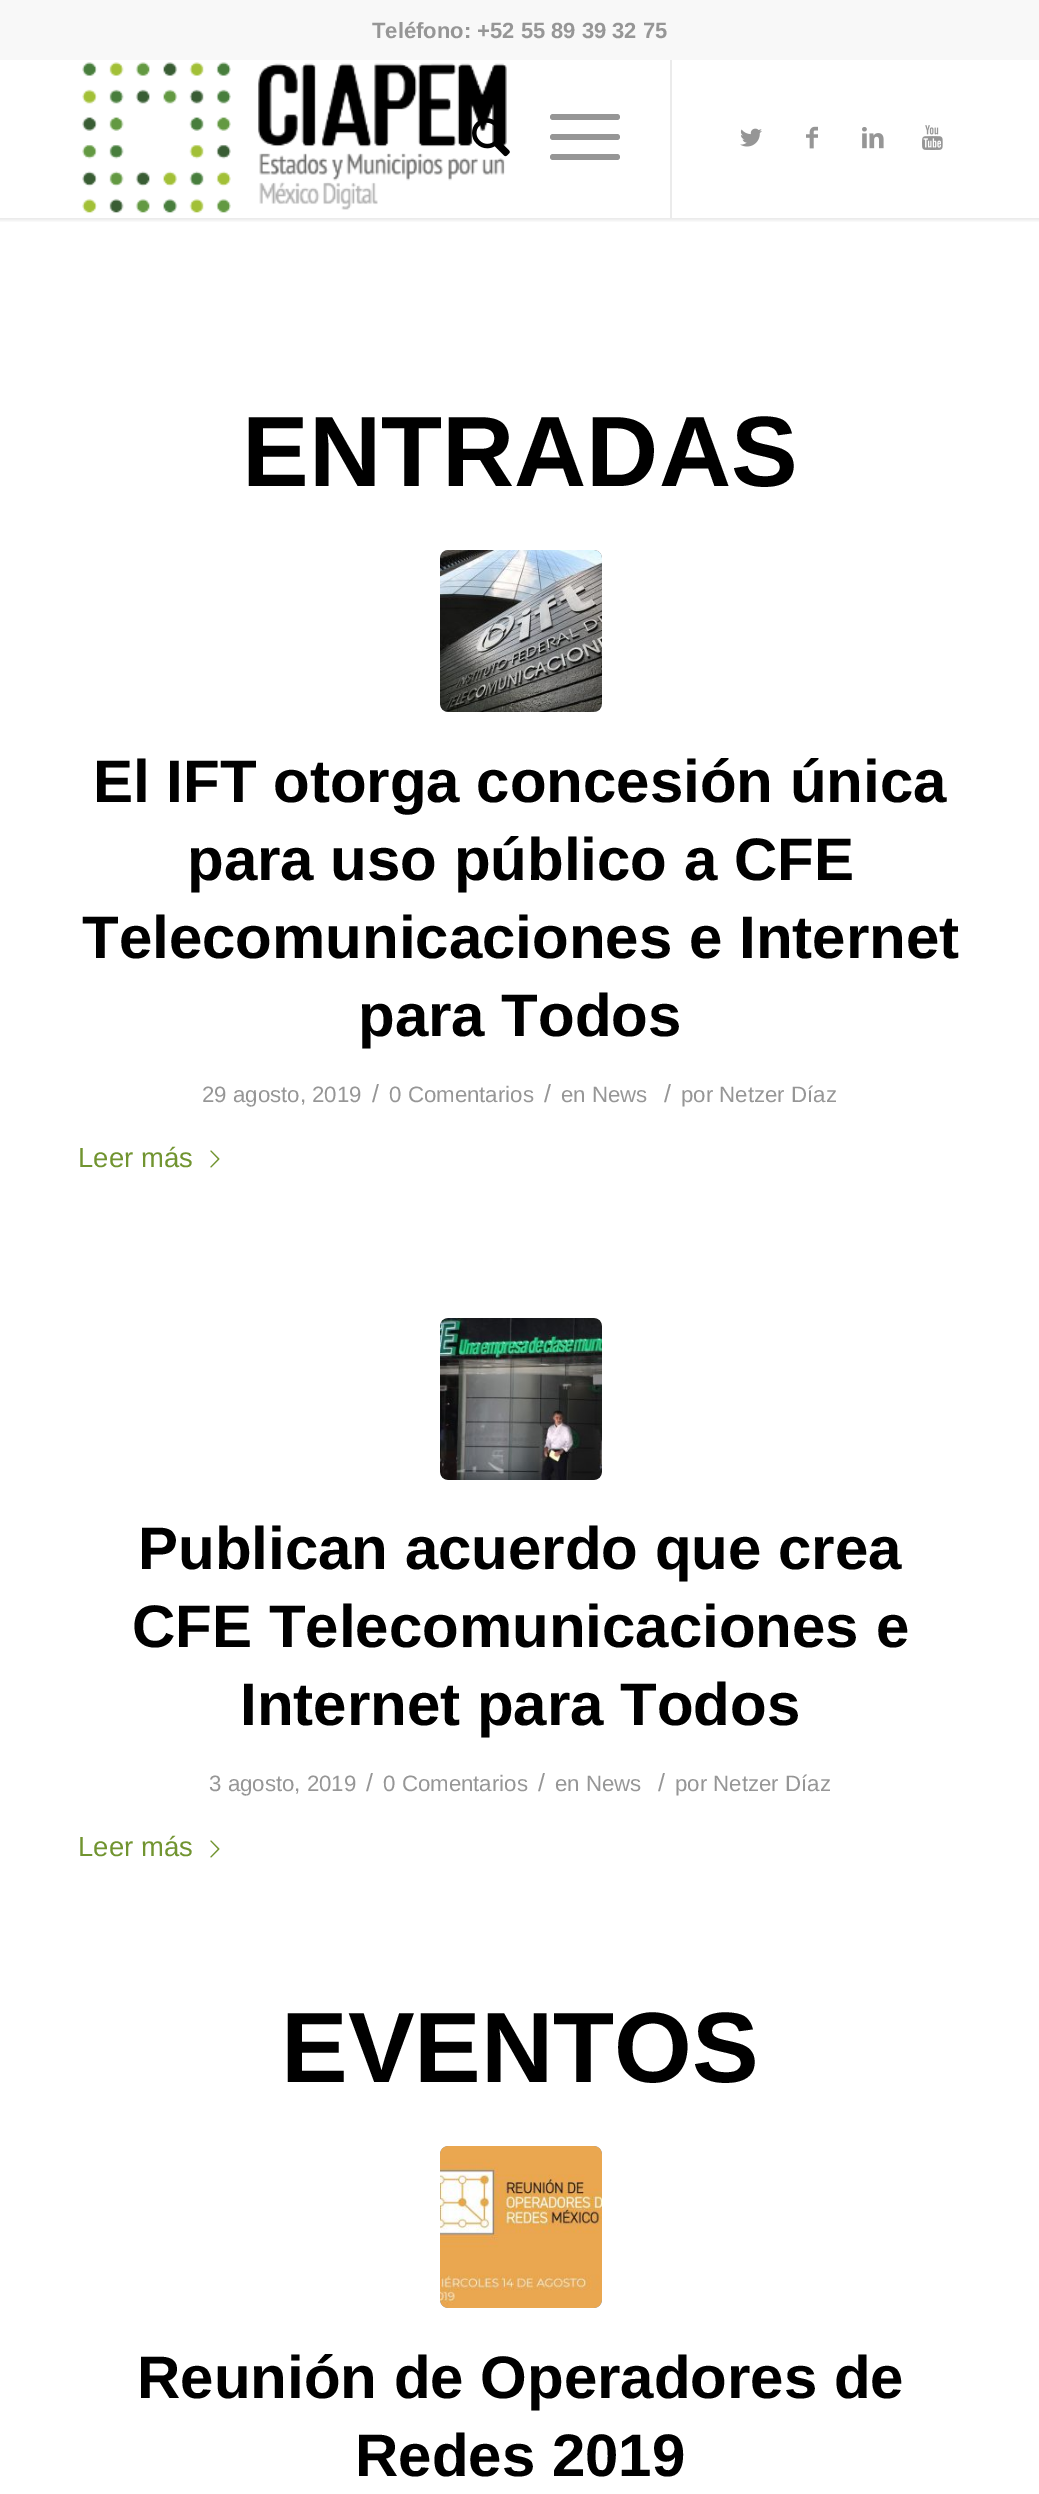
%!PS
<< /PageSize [1039 2494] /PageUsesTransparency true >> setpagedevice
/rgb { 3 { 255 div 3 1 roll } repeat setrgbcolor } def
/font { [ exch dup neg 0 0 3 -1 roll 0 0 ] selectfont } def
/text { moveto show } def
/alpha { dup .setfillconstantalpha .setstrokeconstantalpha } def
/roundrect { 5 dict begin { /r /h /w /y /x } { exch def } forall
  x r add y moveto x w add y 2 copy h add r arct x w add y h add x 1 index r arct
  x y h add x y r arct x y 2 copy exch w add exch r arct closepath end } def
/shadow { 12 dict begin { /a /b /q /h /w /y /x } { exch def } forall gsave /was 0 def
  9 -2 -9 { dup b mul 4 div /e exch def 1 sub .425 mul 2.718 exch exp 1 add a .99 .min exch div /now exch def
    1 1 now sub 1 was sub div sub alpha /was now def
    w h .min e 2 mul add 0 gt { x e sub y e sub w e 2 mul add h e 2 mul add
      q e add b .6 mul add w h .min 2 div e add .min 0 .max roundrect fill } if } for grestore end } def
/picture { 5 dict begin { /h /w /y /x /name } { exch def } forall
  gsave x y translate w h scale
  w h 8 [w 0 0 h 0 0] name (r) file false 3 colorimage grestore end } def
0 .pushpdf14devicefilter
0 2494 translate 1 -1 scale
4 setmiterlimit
255 255 255 rgb
0 0 1039 2494 rectfill
gsave
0 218 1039 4 rectclip
0 0 0 rgb
-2 -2 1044 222 0 2 0.1 shadow
grestore
235 235 235 rgb
670 58 2 160 rectfill
248 248 248 rgb
0 0 1039 60 rectfill
(img_01.rgb) 82 62 425 151 picture
(img_02.rgb) 472 118 38 39 picture
150 150 150 rgb
550 134 70 6 3 roundrect fill
550 114 70 6 3 roundrect fill
550 154 70 6 3 roundrect fill
(img_03.rgb) 740 128 22 19 picture
(img_04.rgb) 806 126 12 23 picture
(img_05.rgb) 862 127 22 22 picture
(img_06.rgb) 922 125 21 25 picture
440 550 162 162 8 roundrect fill
(img_07.rgb) 440 550 162 162 picture
(img_08.rgb) 210 1150 10 18 picture
440 1318 162 162 8 roundrect fill
(img_09.rgb) 440 1318 162 162 picture
(img_08.rgb) 210 1840 10 18 picture
440 2146 162 162 8 roundrect fill
(img_10.rgb) 440 2146 162 162 picture
/LiberationSans-Bold 22 font
(Teléfono: +52 55 89 39 32 75) 372 38 text
/LiberationSans-Bold 100 font
0 0 0 rgb
(ENTRADAS) 242 486 text
/LiberationSans-Bold 60 font
(El IFT otorga concesión única) 93 802 text
(para uso público a CFE) 187 880 text
(Telecomunicaciones e Internet) 82 958 text
(para Todos) 358 1036 text
/LiberationSans-Regular 22.25 font
150 150 150 rgb
(29 agosto, 2019) 202 1102 text
/LiberationSans-Regular 25 font
(/) 372 1102 text
/LiberationSans-Regular 22.25 font
(0 Comentarios) 389 1102 text
/LiberationSans-Regular 25 font
(/) 544 1102 text
/LiberationSans-Regular 22.25 font
(en News) 561 1102 text
/LiberationSans-Regular 25 font
(/) 664 1102 text
/LiberationSans-Regular 22.25 font
(por Netzer Díaz) 681 1102 text
/LiberationSans-Regular 27.5 font
113 148 48 rgb
(Leer más) 78 1167 text
/LiberationSans-Bold 60 font
0 0 0 rgb
(Publican acuerdo que crea) 138 1569 text
(CFE Telecomunicaciones e) 132 1647 text
(Internet para Todos) 240 1725 text
/LiberationSans-Regular 22.25 font
150 150 150 rgb
(3 agosto, 2019) 209 1791 text
/LiberationSans-Regular 25 font
(/) 366 1791 text
/LiberationSans-Regular 22.25 font
(0 Comentarios) 383 1791 text
/LiberationSans-Regular 25 font
(/) 538 1791 text
/LiberationSans-Regular 22.25 font
(en News) 555 1791 text
/LiberationSans-Regular 25 font
(/) 658 1791 text
/LiberationSans-Regular 22.25 font
(por Netzer Díaz) 675 1791 text
/LiberationSans-Regular 27.5 font
113 148 48 rgb
(Leer más) 78 1856 text
/LiberationSans-Bold 100 font
0 0 0 rgb
(EVENTOS) 281 2082 text
/LiberationSans-Bold 60 font
(Reunión de Operadores de) 137 2398 text
(Redes 2019) 355 2476 text
.poppdf14devicefilter showpage
